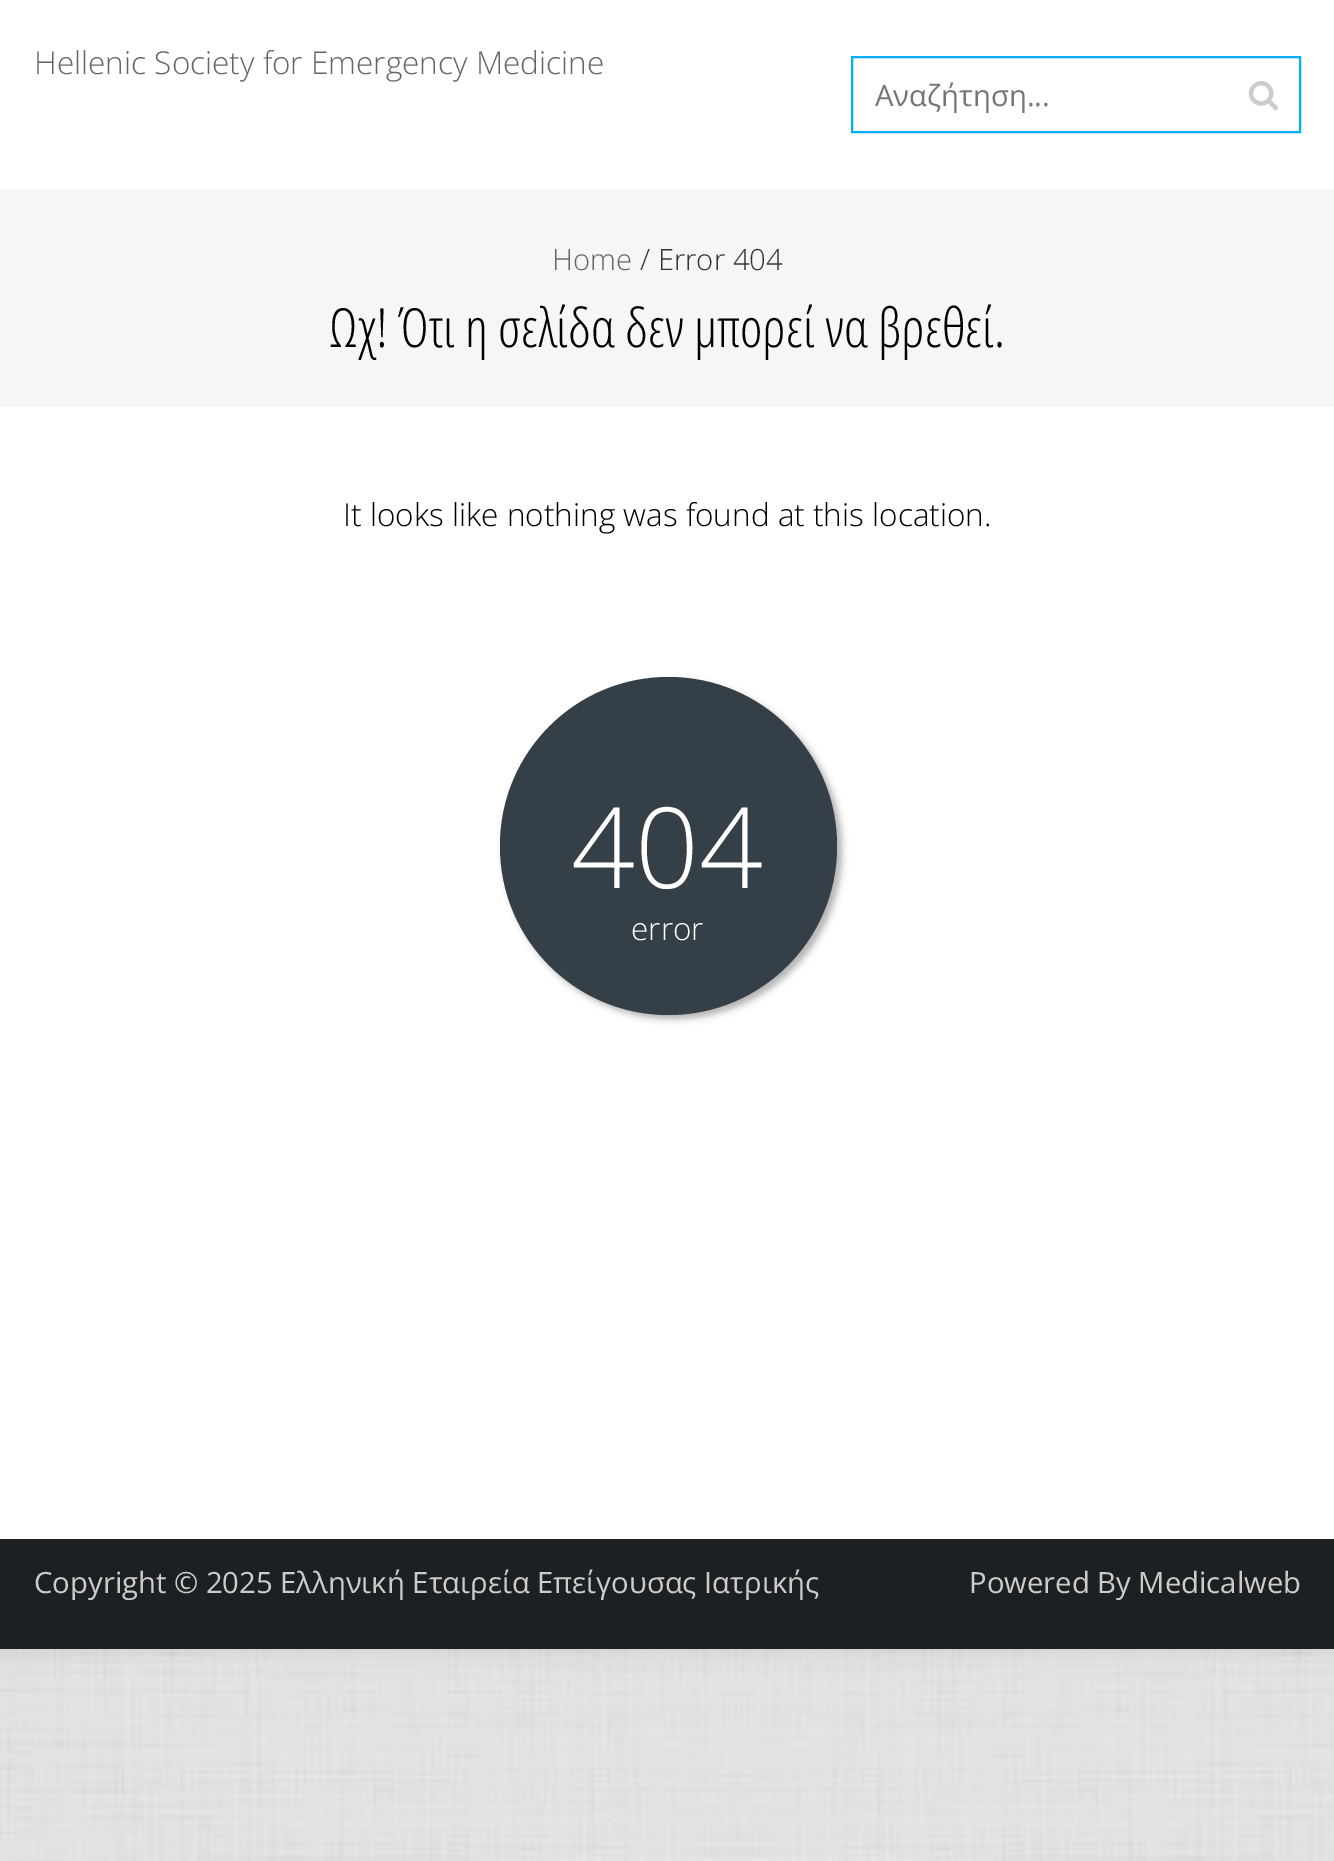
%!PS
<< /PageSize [1334 1861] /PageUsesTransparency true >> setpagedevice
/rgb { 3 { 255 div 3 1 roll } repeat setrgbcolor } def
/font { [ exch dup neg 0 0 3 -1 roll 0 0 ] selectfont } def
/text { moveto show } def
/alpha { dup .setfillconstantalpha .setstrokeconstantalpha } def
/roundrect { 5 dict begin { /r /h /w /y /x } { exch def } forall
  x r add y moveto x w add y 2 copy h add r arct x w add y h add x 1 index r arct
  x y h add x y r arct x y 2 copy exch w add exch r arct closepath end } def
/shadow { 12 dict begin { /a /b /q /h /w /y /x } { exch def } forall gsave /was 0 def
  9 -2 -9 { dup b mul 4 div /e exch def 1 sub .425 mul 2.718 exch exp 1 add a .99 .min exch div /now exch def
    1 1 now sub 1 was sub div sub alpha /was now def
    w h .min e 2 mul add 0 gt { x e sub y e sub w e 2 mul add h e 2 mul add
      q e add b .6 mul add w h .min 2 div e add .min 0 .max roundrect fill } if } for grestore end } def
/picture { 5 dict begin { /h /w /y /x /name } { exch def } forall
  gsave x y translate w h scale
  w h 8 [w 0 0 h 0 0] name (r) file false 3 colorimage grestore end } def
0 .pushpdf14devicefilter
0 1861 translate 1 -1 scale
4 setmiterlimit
255 255 255 rgb
0 0 1334 1861 rectfill
(img_01.rgb) 0 1649 1334 212 picture
0 0 0 rgb
0 0 1334 1649 0 11 0.1 shadow
255 255 255 rgb
0 0 1334 1539 rectfill
1 174 253 rgb
2 setlinewidth
852 57 448 75 rectstroke
(img_02.rgb) 1248 81 30 30 picture
246 246 246 rgb
0 189 1334 218 rectfill
0 0 0 rgb
504 682 338 337 168.5 3.5 0.3 shadow
53 63 71 rgb
500 677 337 338 168.5 roundrect fill
29 32 34 rgb
0 1539 1334 110 rectfill
/OpenSans-Light 31.5 font
102 102 102 rgb
(Hellenic Society for Emergency Medicine) 34 74 text
/OpenSans-Regular 29.25 font
117 117 117 rgb
(Αναζήτηση...) 875 106 text
/OpenSans-Light 29.25 font
102 102 102 rgb
(Home) 552 270 text
51 51 51 rgb
(/ Error 404) 640 270 text
/OpenSansCondensed-Light 54 font
0 0 0 rgb
(Ωχ! Ότι η σελίδα δεν μπορεί να βρεθεί.) 329 347 text
/OpenSans-Light 31.5 font
(It looks like nothing was found at this location.) 343 526 text
/OpenSans-Light 112 font
255 255 255 rgb
(404) 571 888 text
/OpenSans-Light 31.5 font
(error) 631 940 text
/OpenSans-Regular 29.25 font
204 204 204 rgb
(Copyright © 2025 Ελληνική Εταιρεία Επείγουσας Ιατρικής) 34 1593 text
(Powered By Medicalweb) 969 1593 text
.poppdf14devicefilter showpage
